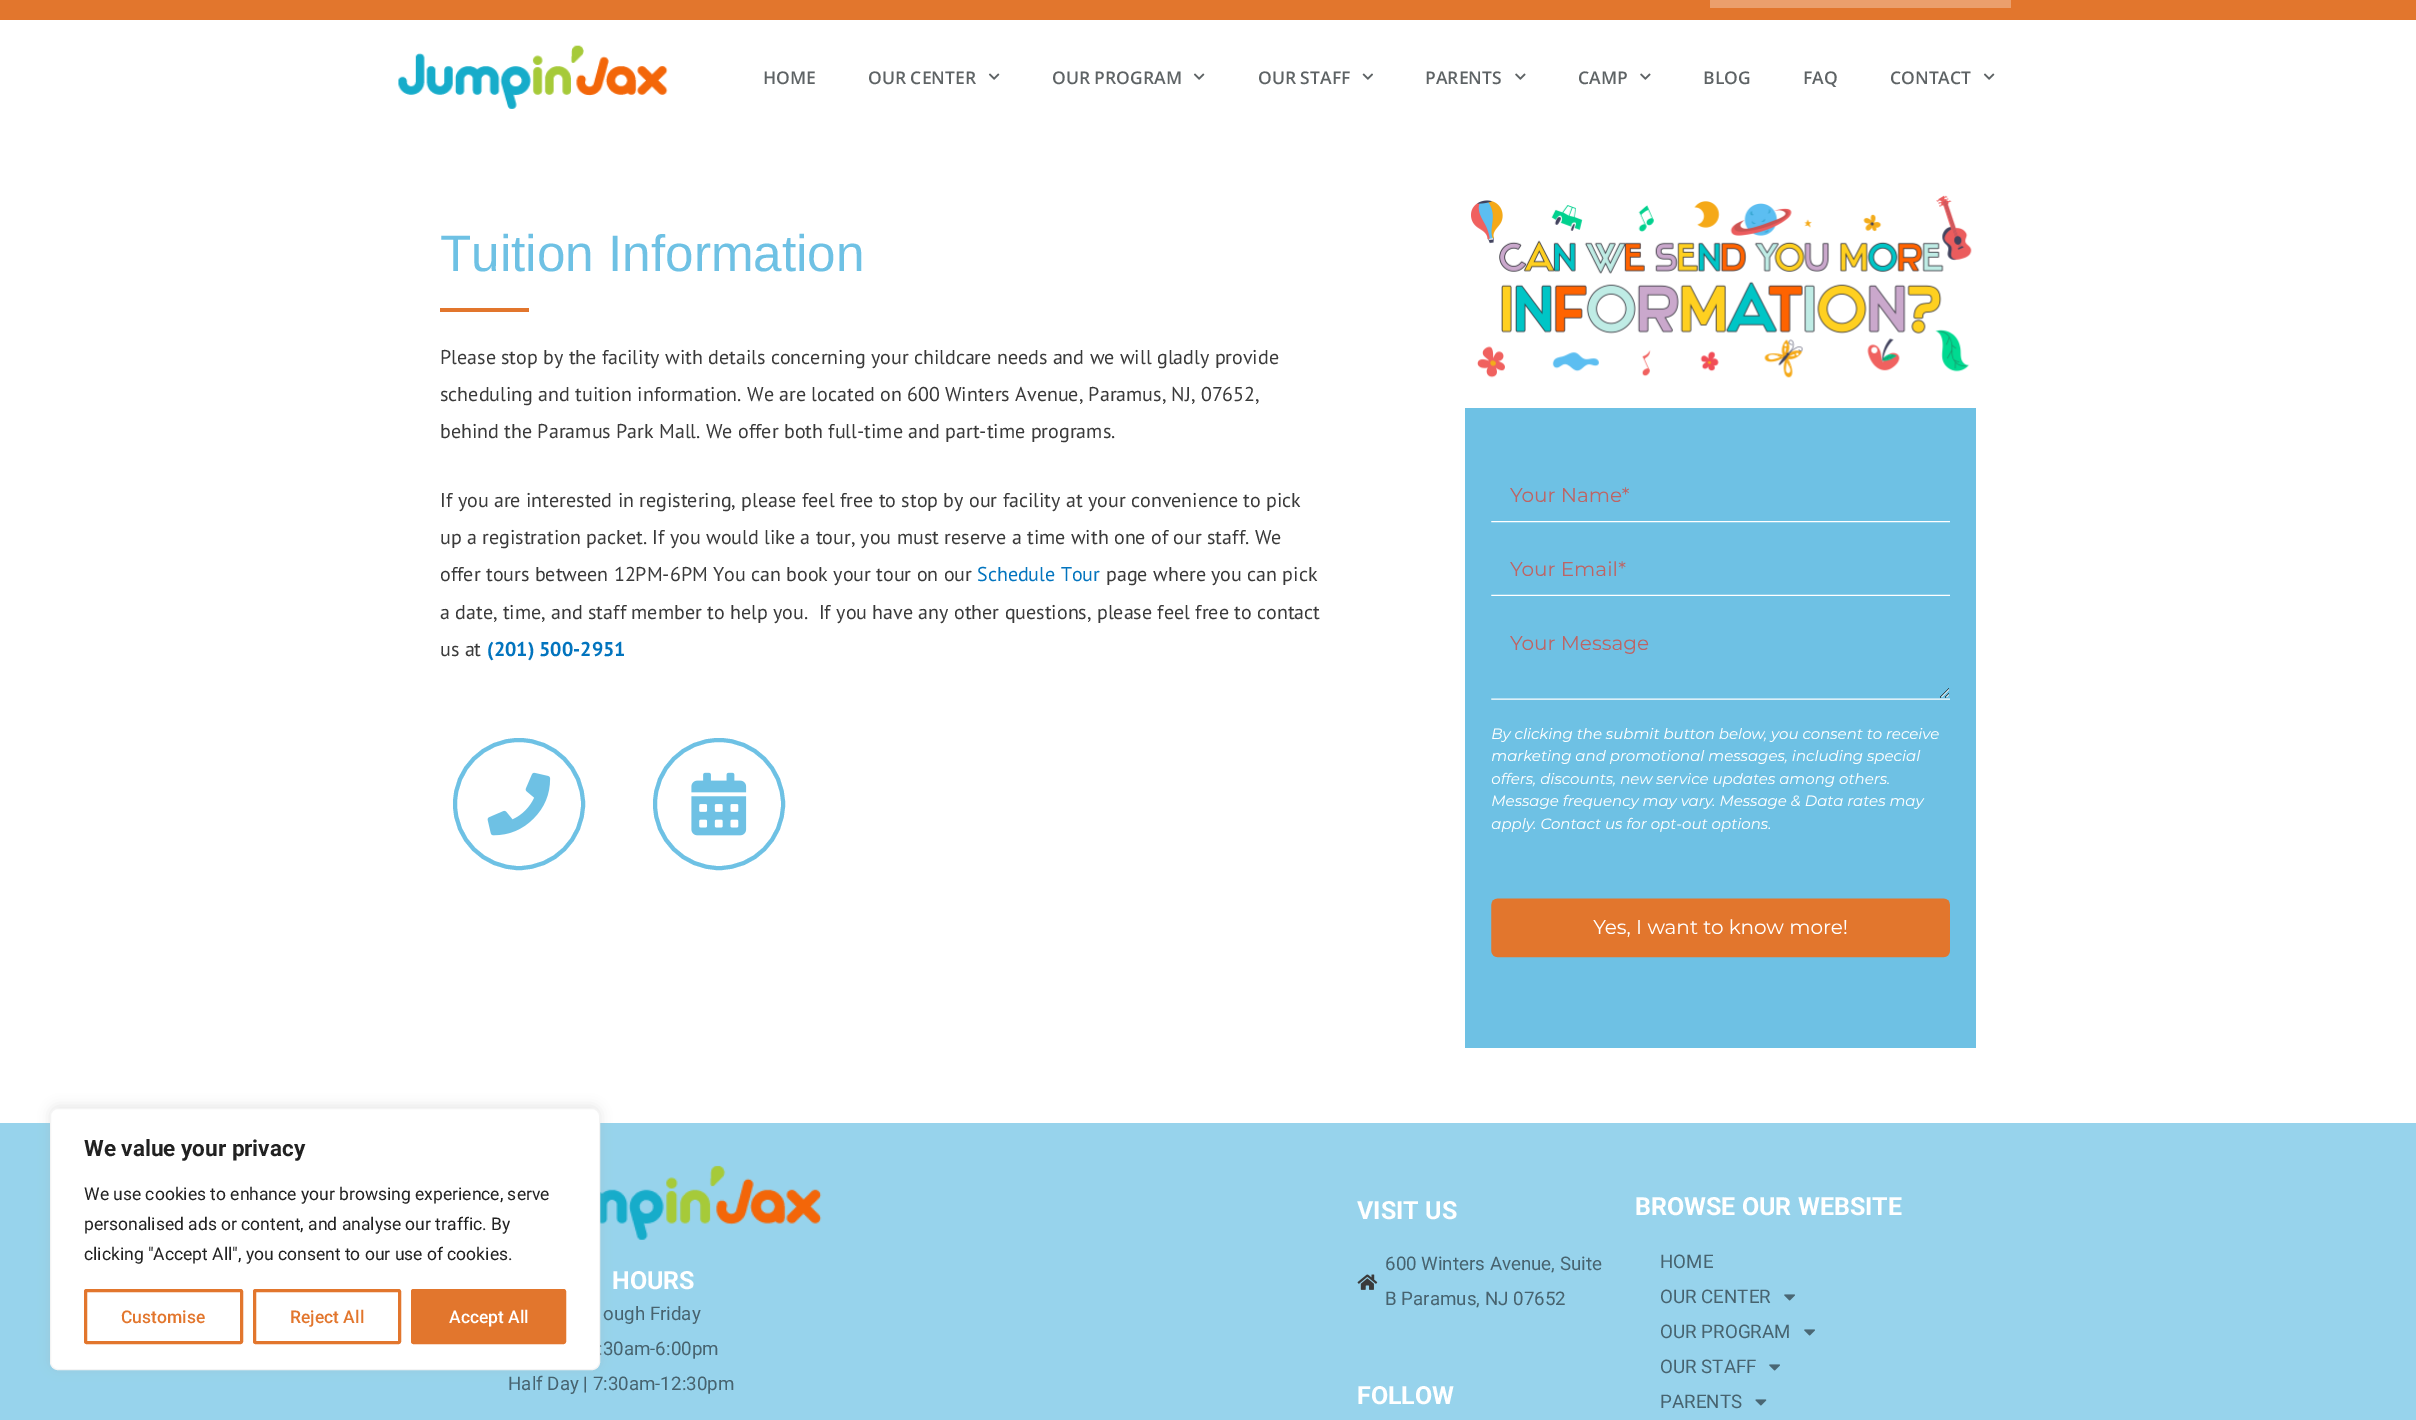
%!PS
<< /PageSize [2416 1420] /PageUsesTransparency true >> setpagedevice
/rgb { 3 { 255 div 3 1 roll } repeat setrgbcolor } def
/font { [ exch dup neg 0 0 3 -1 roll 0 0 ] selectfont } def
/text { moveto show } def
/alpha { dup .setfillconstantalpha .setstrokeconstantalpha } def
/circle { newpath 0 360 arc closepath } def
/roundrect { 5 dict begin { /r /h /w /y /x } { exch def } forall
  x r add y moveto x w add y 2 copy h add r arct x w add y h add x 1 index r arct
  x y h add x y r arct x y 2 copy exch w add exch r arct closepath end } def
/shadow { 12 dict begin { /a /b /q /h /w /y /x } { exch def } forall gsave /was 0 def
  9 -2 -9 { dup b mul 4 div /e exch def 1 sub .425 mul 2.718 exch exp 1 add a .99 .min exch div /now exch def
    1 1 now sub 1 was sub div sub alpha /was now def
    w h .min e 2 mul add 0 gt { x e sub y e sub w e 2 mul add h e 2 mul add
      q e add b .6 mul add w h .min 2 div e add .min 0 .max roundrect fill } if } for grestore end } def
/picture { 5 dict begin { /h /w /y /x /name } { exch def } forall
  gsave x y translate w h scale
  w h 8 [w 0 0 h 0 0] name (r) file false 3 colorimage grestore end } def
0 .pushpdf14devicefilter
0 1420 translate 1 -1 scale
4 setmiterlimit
255 255 255 rgb
0 0 2416 1420 rectfill
151 211 236 rgb
0 1123 2416 297 rectfill
(img_09.rgb) 600 1165 222 75 picture
172 171 171 rgb
50 1106 550 263 8 6 0.3 shadow
226 118 45 rgb
0 0 2416 20 rectfill
235 159 108 rgb
1710 0 301 8 rectfill
(img_01.rgb) 398 45 270 64 picture
(img_02.rgb) 988 73 12 7 picture
(img_02.rgb) 1193 73 12 7 picture
(img_03.rgb) 1362 73 11 7 picture
(img_04.rgb) 1515 73 11 7 picture
(img_04.rgb) 1640 73 11 7 picture
(img_02.rgb) 1983 73 12 7 picture
226 118 45 rgb
440 308 89 4 rectfill
110 193 228 rgb
4 setlinewidth
519 804 64 circle stroke
(img_05.rgb) 487 772 64 64 picture
719 804 64 circle stroke
(img_06.rgb) 691 772 56 64 picture
(img_07.rgb) 1471 195 501 183 picture
1465 408 511 640 rectfill
(img_08.rgb) 1491 487 459 471 picture
(img_10.rgb) 1357 1274 21 16 picture
(img_11.rgb) 1784 1294 11 7 picture
(img_11.rgb) 1804 1329 11 7 picture
(img_11.rgb) 1769 1364 11 7 picture
(img_12.rgb) 1755 1399 12 7 picture
/OpenSans-SemiBold 17.5 font
94 99 101 rgb
(HOME) 763 84 text
(OUR CENTER) 868 84 text
(OUR PROGRAM) 1052 84 text
(OUR STAFF) 1258 84 text
(PARENTS) 1425 84 text
(CAMP) 1578 84 text
(BLOG) 1703 84 text
(FAQ) 1803 84 text
(CONTACT) 1890 84 text
/LiberationSans-Regular 51.25 font
110 193 228 rgb
(Tuition Information) 440 271 text
/PTSans-Regular 20 font
58 58 58 rgb
(Please stop by the facility with details concerning your childcare needs and we will gladly provide) 440 364 text
(scheduling and tuition information. We are located on 600 Winters Avenue, Paramus, NJ, 07652,) 440 401 text
(behind the Paramus Park Mall. We offer both full-time and part-time programs.) 440 438 text
(If you are interested in registering, please feel free to stop by our facility at your convenience to pick) 440 507 text
(up a registration packet. If you would like a tour, you must reserve a time with one of our staff. We) 440 544 text
(offer tours between 12PM-6PM You can book your tour on our) 440 581 text
2 116 190 rgb
(Schedule Tour) 977 581 text
58 58 58 rgb
(page where you can pick) 1106 581 text
(a date, time, and staff member to help you.  If you have any other questions, please feel free to contact) 440 619 text
(us at) 440 656 text
/PTSans-Bold 20 font
2 116 190 rgb
(\(201\) 500-2951) 487 656 text
/Roboto-Bold 25 font
255 255 255 rgb
(HOURS) 612 1289 text
/Roboto-Regular 18.75 font
71 99 111 rgb
(ough Friday) 603 1320 text
(:30am-6:00pm) 598 1355 text
255 255 255 rgb
50.5 1108.5 549 261 7.5 roundrect gsave fill grestore
244 244 244 rgb
1 setlinewidth
stroke
226 118 45 rgb
412.5 1290.5 152 52 1 roundrect gsave fill grestore
3 setlinewidth
stroke
/Roboto-Medium 17.5 font
255 255 255 rgb
(Accept All) 449 1323 text
226 118 45 rgb
254.5 1290.5 145 52 1 roundrect stroke
(Reject All) 290 1323 text
85.5 1290.5 156 52 1 roundrect stroke
(Customise) 121 1323 text
/Roboto-Regular 17.5 font
33 33 33 rgb
(clicking "Accept All", you consent to our use of cookies.) 84 1260 text
(personalised ads or content, and analyse our traffic. By) 84 1230 text
(We use cookies to enhance your browsing experience, serve) 84 1200 text
/Roboto-Bold 22.5 font
(We value your privacy) 84 1156 text
/Roboto-Regular 18.75 font
71 99 111 rgb
(Half Day | 7:30am-12:30pm) 508 1390 text
/Roboto-Bold 25 font
255 255 255 rgb
(VISIT US) 1357 1219 text
/Roboto-Regular 18.75 font
71 99 111 rgb
(600 Winters Avenue, Suite) 1385 1270 text
(B Paramus, NJ 07652) 1385 1305 text
/Roboto-Bold 25 font
255 255 255 rgb
(FOLLOW) 1357 1404 text
(BROWSE OUR WEBSITE) 1635 1215 text
/Roboto-Regular 18.75 font
71 99 111 rgb
(HOME) 1660 1268 text
(OUR CENTER) 1660 1303 text
(OUR PROGRAM) 1660 1338 text
(OUR STAFF) 1660 1373 text
(PARENTS) 1660 1408 text
.poppdf14devicefilter showpage
